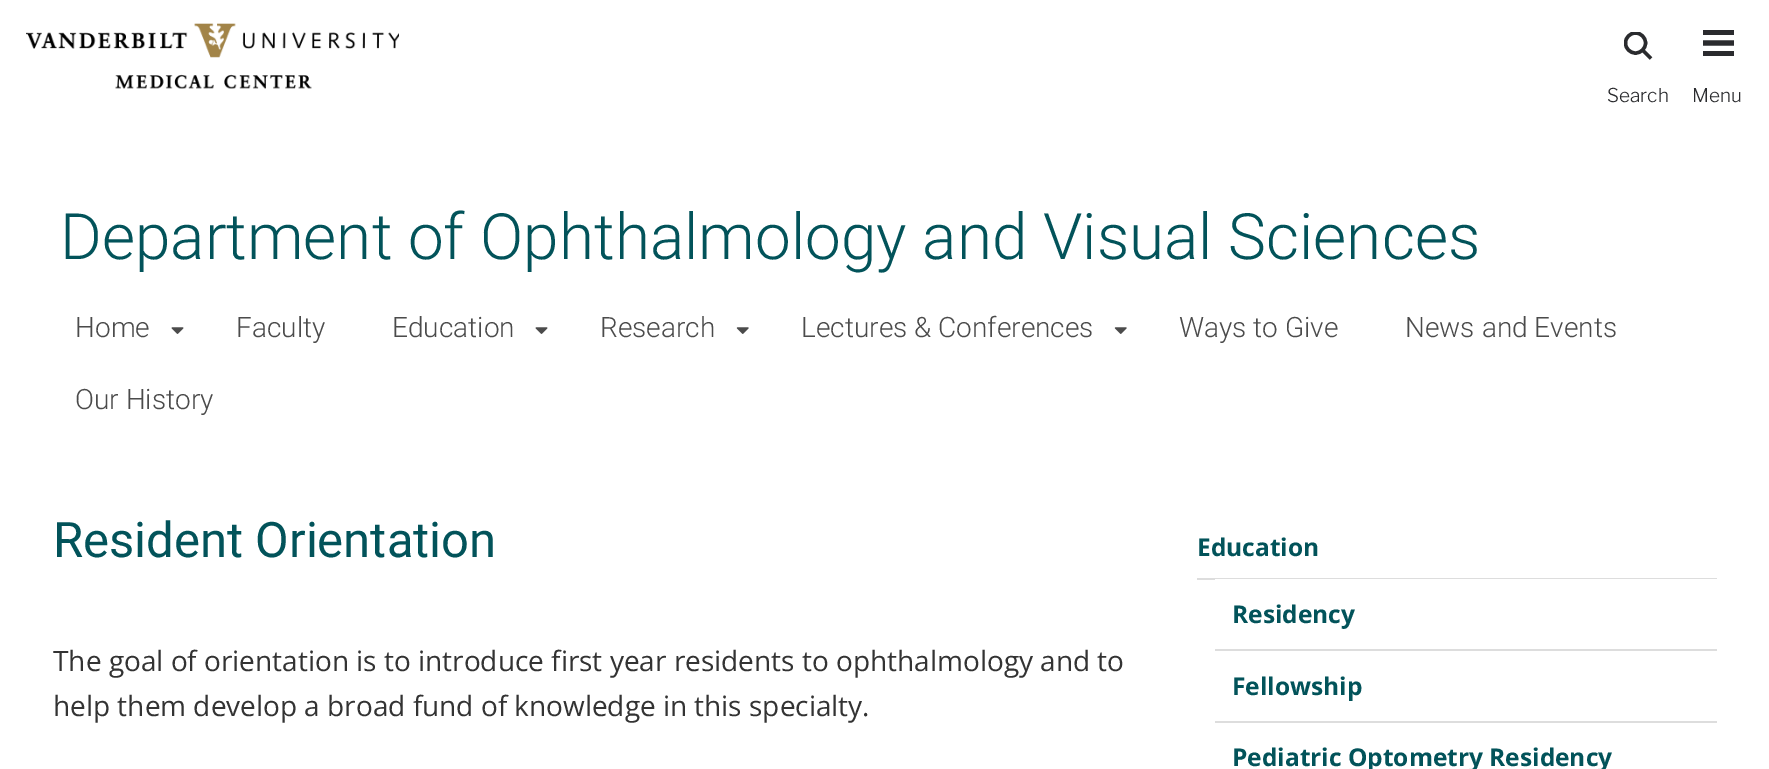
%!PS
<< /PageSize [1769 769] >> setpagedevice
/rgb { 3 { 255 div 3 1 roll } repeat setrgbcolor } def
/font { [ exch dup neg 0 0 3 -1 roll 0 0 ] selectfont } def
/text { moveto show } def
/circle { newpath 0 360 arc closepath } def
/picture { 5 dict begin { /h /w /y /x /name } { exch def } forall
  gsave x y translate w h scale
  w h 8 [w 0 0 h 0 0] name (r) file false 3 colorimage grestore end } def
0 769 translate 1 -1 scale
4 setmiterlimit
255 255 255 rgb
0 0 1769 769 rectfill
(img_01.rgb) 26 23 373 66 picture
42 43 46 rgb
3.4 setlinewidth
1643 50.5 moveto 8 8 rlineto stroke
gsave
1624 32 28 28 rectclip
1635.5 43 10 circle stroke
grestore
1703 30 31 5 rectfill
5.2 setlinewidth
1703 43 moveto 31 0 rlineto stroke
1703 51 31 5 rectfill
(img_02.rgb) 171 327 13 7 picture
(img_02.rgb) 535 327 13 7 picture
(img_03.rgb) 736 327 13 7 picture
(img_03.rgb) 1114 327 13 7 picture
221 221 221 rgb
1197 578 520 2 rectfill
255 255 255 rgb
1215 579 502 1 rectfill
221 221 221 rgb
1215 649 502 2 rectfill
1215 721 502 2 rectfill
/LibreFranklin-Light 19 font
42 43 46 rgb
(Search) 1607 102 text
(Menu) 1692 102 text
/Roboto-Light 63.9 font
2 83 90 rgb
(Department of Ophthalmology and Visual Sciences) 60 259 text
/Roboto-Light 28 font
75 75 75 rgb
(Home) 75 337 text
(Faculty) 236 337 text
(Education) 392 337 text
(Research) 600 337 text
(Lectures & Conferences) 801 337 text
(Ways to Give) 1179 337 text
(News and Events) 1405 337 text
(Our History) 75 409 text
/Roboto-Regular 49 font
2 83 90 rgb
(Resident Orientation) 53 557 text
/OpenSans-Regular 28 font
51 51 51 rgb
(The goal of orientation is to introduce first year residents to ophthalmology and to) 53 671 text
(help them develop a broad fund of knowledge in this specialty.) 53 716 text
/OpenSans-Bold 24.5 font
2 83 90 rgb
(Education) 1197 556 text
(Residency) 1232 623 text
(Fellowship) 1232 695 text
(Pediatric Optometry Residency) 1232 766 text
showpage
